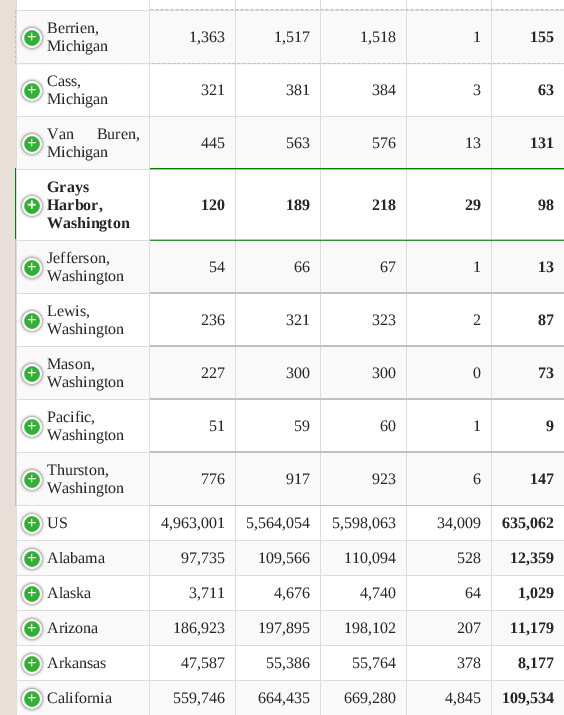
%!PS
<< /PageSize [564 715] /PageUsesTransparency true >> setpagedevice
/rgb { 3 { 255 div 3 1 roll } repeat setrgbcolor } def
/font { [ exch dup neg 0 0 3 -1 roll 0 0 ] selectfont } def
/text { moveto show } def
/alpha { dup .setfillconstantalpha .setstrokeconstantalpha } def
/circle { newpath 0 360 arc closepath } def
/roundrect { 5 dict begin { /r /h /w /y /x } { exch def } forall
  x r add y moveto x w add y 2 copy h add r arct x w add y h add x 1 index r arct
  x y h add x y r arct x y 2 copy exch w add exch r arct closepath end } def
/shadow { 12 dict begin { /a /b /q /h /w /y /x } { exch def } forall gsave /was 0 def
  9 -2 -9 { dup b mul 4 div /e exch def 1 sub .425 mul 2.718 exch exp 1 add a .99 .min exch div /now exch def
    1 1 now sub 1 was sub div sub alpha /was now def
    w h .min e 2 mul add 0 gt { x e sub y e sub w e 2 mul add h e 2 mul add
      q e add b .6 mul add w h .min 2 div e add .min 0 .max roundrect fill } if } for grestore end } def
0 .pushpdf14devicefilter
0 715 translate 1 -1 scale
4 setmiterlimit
232 224 216 rgb
0 0 564 715 rectfill
255 255 255 rgb
150 0 414 10 rectfill
221 221 221 rgb
235 0 1 10 rectfill
320 0 1 10 rectfill
406 0 1 10 rectfill
491 0 1 10 rectfill
249 249 249 rgb
150 11 85 52 rectfill
221 221 221 rgb
150 10 414 1 rectfill
235 10 1 53 rectfill
249 249 249 rgb
236 11 84 52 rectfill
221 221 221 rgb
320 10 1 53 rectfill
249 249 249 rgb
321 11 85 52 rectfill
221 221 221 rgb
406 10 1 53 rectfill
249 249 249 rgb
407 11 84 52 rectfill
221 221 221 rgb
491 10 1 53 rectfill
249 249 249 rgb
492 11 72 52 rectfill
255 255 255 rgb
150 64 414 52 rectfill
17 64 132 52 rectfill
221 221 221 rgb
150 63 414 1 rectfill
235 63 1 53 rectfill
320 63 1 53 rectfill
406 63 1 53 rectfill
491 63 1 53 rectfill
249 249 249 rgb
150 117 414 51 rectfill
221 221 221 rgb
16 116 548 1 rectfill
235 116 1 53 rectfill
320 116 1 53 rectfill
406 116 1 53 rectfill
491 116 1 53 rectfill
255 255 255 rgb
150 170 85 69 rectfill
221 221 221 rgb
150 169 414 1 rectfill
235 169 1 371 rectfill
255 255 255 rgb
236 170 84 69 rectfill
221 221 221 rgb
320 169 1 371 rectfill
255 255 255 rgb
321 170 85 69 rectfill
221 221 221 rgb
406 169 1 371 rectfill
255 255 255 rgb
407 170 84 69 rectfill
221 221 221 rgb
491 169 1 371 rectfill
255 255 255 rgb
492 170 72 69 rectfill
0 128 0 rgb
15.5 168.5 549 72 rectstroke
249 249 249 rgb
17 117 132 52 rectfill
150 241 85 51 rectfill
236 241 84 51 rectfill
321 241 85 51 rectfill
407 241 84 51 rectfill
492 241 72 51 rectfill
192 192 192 rgb
15.5 239.5 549 54 rectstroke
255 255 255 rgb
17 170 132 70 rectfill
221 221 221 rgb
16 169 134 1 rectfill
149 169 1 71 rectfill
16 169 1 71 rectfill
68 68 68 rgb
22 196 20 20 10 1.5 1 shadow
49 177 49 rgb
32 206 9 circle gsave fill grestore
255 255 255 rgb
2 setlinewidth
stroke
150 294 85 51 rectfill
236 294 84 51 rectfill
321 294 85 51 rectfill
407 294 84 51 rectfill
492 294 72 51 rectfill
192 192 192 rgb
1 setlinewidth
15.5 292.5 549 54 rectstroke
249 249 249 rgb
17 241 132 52 rectfill
221 221 221 rgb
16 240 134 1 rectfill
149 240 1 53 rectfill
16 240 1 53 rectfill
68 68 68 rgb
22 258 20 20 10 1.5 1 shadow
49 177 49 rgb
32 268 9 circle gsave fill grestore
255 255 255 rgb
2 setlinewidth
stroke
249 249 249 rgb
150 347 85 51 rectfill
236 347 84 51 rectfill
321 347 85 51 rectfill
407 347 84 51 rectfill
492 347 72 51 rectfill
192 192 192 rgb
1 setlinewidth
15.5 345.5 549 54 rectstroke
255 255 255 rgb
17 294 132 52 rectfill
221 221 221 rgb
16 293 134 1 rectfill
149 293 1 53 rectfill
16 293 1 53 rectfill
68 68 68 rgb
22 311 20 20 10 1.5 1 shadow
49 177 49 rgb
32 321 9 circle gsave fill grestore
255 255 255 rgb
2 setlinewidth
stroke
150 400 85 51 rectfill
236 400 84 51 rectfill
321 400 85 51 rectfill
407 400 84 51 rectfill
492 400 72 51 rectfill
192 192 192 rgb
1 setlinewidth
15.5 398.5 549 54 rectstroke
249 249 249 rgb
17 347 132 52 rectfill
221 221 221 rgb
16 346 134 1 rectfill
149 346 1 53 rectfill
16 346 1 53 rectfill
68 68 68 rgb
22 364 20 20 10 1.5 1 shadow
49 177 49 rgb
32 374 9 circle gsave fill grestore
255 255 255 rgb
2 setlinewidth
stroke
249 249 249 rgb
150 453 85 52 rectfill
236 453 84 52 rectfill
321 453 85 52 rectfill
407 453 84 52 rectfill
492 453 72 52 rectfill
192 192 192 rgb
1 setlinewidth
15.5 451.5 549 54 rectstroke
255 255 255 rgb
17 400 132 52 rectfill
221 221 221 rgb
16 399 134 1 rectfill
149 399 1 53 rectfill
16 399 1 53 rectfill
68 68 68 rgb
22 417 20 20 10 1.5 1 shadow
49 177 49 rgb
32 427 9 circle gsave fill grestore
255 255 255 rgb
2 setlinewidth
stroke
249 249 249 rgb
17 453 132 52 rectfill
221 221 221 rgb
16 452 134 1 rectfill
149 452 1 53 rectfill
16 452 1 53 rectfill
68 68 68 rgb
22 470 20 20 10 1.5 1 shadow
49 177 49 rgb
32 480 9 circle gsave fill grestore
255 255 255 rgb
stroke
17 506 132 34 rectfill
221 221 221 rgb
16 505 134 1 rectfill
149 505 1 35 rectfill
16 505 1 35 rectfill
68 68 68 rgb
22 514 20 20 10 1.5 1 shadow
49 177 49 rgb
32 524 9 circle gsave fill grestore
255 255 255 rgb
stroke
150 506 85 34 rectfill
236 506 84 34 rectfill
321 506 85 34 rectfill
407 506 84 34 rectfill
492 506 72 34 rectfill
249 249 249 rgb
17 541 547 34 rectfill
221 221 221 rgb
16 540 134 1 rectfill
149 540 1 35 rectfill
16 540 1 35 rectfill
68 68 68 rgb
22 549 20 20 10 1.5 1 shadow
49 177 49 rgb
32 559 9 circle gsave fill grestore
255 255 255 rgb
stroke
221 221 221 rgb
150 540 414 1 rectfill
235 540 1 35 rectfill
320 540 1 35 rectfill
406 540 1 35 rectfill
491 540 1 35 rectfill
255 255 255 rgb
17 576 547 34 rectfill
221 221 221 rgb
16 575 134 1 rectfill
149 575 1 35 rectfill
16 575 1 35 rectfill
68 68 68 rgb
22 584 20 20 10 1.5 1 shadow
49 177 49 rgb
32 594 9 circle gsave fill grestore
255 255 255 rgb
stroke
221 221 221 rgb
150 575 414 1 rectfill
235 575 1 35 rectfill
320 575 1 35 rectfill
406 575 1 35 rectfill
491 575 1 35 rectfill
249 249 249 rgb
17 611 547 34 rectfill
221 221 221 rgb
16 610 134 1 rectfill
149 610 1 35 rectfill
16 610 1 35 rectfill
68 68 68 rgb
22 619 20 20 10 1.5 1 shadow
49 177 49 rgb
32 629 9 circle gsave fill grestore
255 255 255 rgb
stroke
221 221 221 rgb
150 610 414 1 rectfill
235 610 1 35 rectfill
320 610 1 35 rectfill
406 610 1 35 rectfill
491 610 1 35 rectfill
255 255 255 rgb
17 646 547 34 rectfill
221 221 221 rgb
16 645 134 1 rectfill
149 645 1 35 rectfill
16 645 1 35 rectfill
68 68 68 rgb
22 654 20 20 10 1.5 1 shadow
49 177 49 rgb
32 664 9 circle gsave fill grestore
255 255 255 rgb
stroke
221 221 221 rgb
150 645 414 1 rectfill
235 645 1 35 rectfill
320 645 1 35 rectfill
406 645 1 35 rectfill
491 645 1 35 rectfill
249 249 249 rgb
17 681 132 34 rectfill
221 221 221 rgb
16 680 134 1 rectfill
149 680 1 35 rectfill
16 680 1 35 rectfill
68 68 68 rgb
22 689 20 20 10 1.5 1 shadow
49 177 49 rgb
32 699 9 circle gsave fill grestore
255 255 255 rgb
stroke
249 249 249 rgb
150 681 85 34 rectfill
221 221 221 rgb
150 680 414 1 rectfill
235 680 1 35 rectfill
249 249 249 rgb
236 681 84 34 rectfill
221 221 221 rgb
320 680 1 35 rectfill
249 249 249 rgb
321 681 85 34 rectfill
221 221 221 rgb
406 680 1 35 rectfill
249 249 249 rgb
407 681 84 34 rectfill
221 221 221 rgb
491 680 1 35 rectfill
249 249 249 rgb
492 681 72 34 rectfill
/LiberationSerif-Regular 16 font
38 38 38 rgb
(1,363) 189 42 text
(1,517) 274 42 text
(1,518) 360 42 text
(1) 473 42 text
/LiberationSerif-Bold 16 font
(155) 530 42 text
192 192 192 rgb
1 setlinewidth
[3 2] 0 setdash
15.5 9.5 moveto 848 0 rlineto 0 54 rlineto -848 0 rlineto closepath stroke
221 221 221 rgb
16 10 134 1 rectfill
16 10 1 53 rectfill
249 249 249 rgb
17 11 132 52 rectfill
68 68 68 rgb
22 28 20 20 10 1.5 1 shadow
49 177 49 rgb
32 38 9 circle gsave fill grestore
255 255 255 rgb
2 setlinewidth
[] 0 setdash
stroke
/LiberationMono-Regular 16 font
(+) 27 42 text
/LiberationSerif-Regular 16 font
38 38 38 rgb
(Michigan) 47 51 text
(Berrien,) 47 33 text
221 221 221 rgb
149 10 1 53 rectfill
16 0 1 10 rectfill
149 0 1 10 rectfill
255 255 255 rgb
17 0 132 10 rectfill
221 221 221 rgb
16 63 134 1 rectfill
149 63 1 106 rectfill
16 63 1 106 rectfill
68 68 68 rgb
22 81 20 20 10 1.5 1 shadow
49 177 49 rgb
32 91 9 circle gsave fill grestore
255 255 255 rgb
stroke
/LiberationMono-Regular 16 font
(+) 27 95 text
/LiberationSerif-Regular 16 font
38 38 38 rgb
(Cass,) 47 86 text
(Michigan) 47 104 text
(321) 201 95 text
(381) 286 95 text
(384) 372 95 text
(3) 473 95 text
/LiberationSerif-Bold 16 font
(63) 538 95 text
68 68 68 rgb
22 134 20 20 10 1.5 1 shadow
49 177 49 rgb
32 144 9 circle gsave fill grestore
255 255 255 rgb
stroke
/LiberationMono-Regular 16 font
(+) 27 148 text
/LiberationSerif-Regular 16 font
38 38 38 rgb
47 139 moveto 19 0 32 (Van Buren,) widthshow
(Michigan) 47 157 text
(445) 201 148 text
(563) 286 148 text
(576) 372 148 text
(13) 465 148 text
/LiberationSerif-Bold 16 font
(131) 530 148 text
(Grays) 47 192 text
/LiberationMono-Bold 16 font
255 255 255 rgb
(+) 27 210 text
/LiberationSerif-Bold 16 font
38 38 38 rgb
(Harbor,) 47 210 text
(Washington) 47 228 text
(120) 201 210 text
(189) 286 210 text
(218) 372 210 text
(29) 465 210 text
(98) 538 210 text
/LiberationMono-Regular 16 font
255 255 255 rgb
(+) 27 272 text
/LiberationSerif-Regular 16 font
38 38 38 rgb
(Jefferson,) 47 263 text
(Washington) 47 281 text
(54) 209 272 text
(66) 294 272 text
(67) 380 272 text
(1) 473 272 text
/LiberationSerif-Bold 16 font
(13) 538 272 text
/LiberationMono-Regular 16 font
255 255 255 rgb
(+) 27 325 text
/LiberationSerif-Regular 16 font
38 38 38 rgb
(Lewis,) 47 316 text
(Washington) 47 334 text
(236) 201 325 text
(321) 286 325 text
(323) 372 325 text
(2) 473 325 text
/LiberationSerif-Bold 16 font
(87) 538 325 text
/LiberationMono-Regular 16 font
255 255 255 rgb
(+) 27 378 text
/LiberationSerif-Regular 16 font
38 38 38 rgb
(Mason,) 47 369 text
(Washington) 47 387 text
(227) 201 378 text
(300) 286 378 text
(300) 372 378 text
(0) 473 378 text
/LiberationSerif-Bold 16 font
(73) 538 378 text
/LiberationMono-Regular 16 font
255 255 255 rgb
(+) 27 431 text
/LiberationSerif-Regular 16 font
38 38 38 rgb
(Pacific,) 47 422 text
(Washington) 47 440 text
(51) 209 431 text
(59) 294 431 text
(60) 380 431 text
(1) 473 431 text
/LiberationSerif-Bold 16 font
(9) 546 431 text
/LiberationMono-Regular 16 font
255 255 255 rgb
(+) 27 484 text
/LiberationSerif-Regular 16 font
38 38 38 rgb
(Thurston,) 47 475 text
(Washington) 47 493 text
(776) 201 484 text
(917) 286 484 text
(923) 372 484 text
(6) 473 484 text
/LiberationSerif-Bold 16 font
(147) 530 484 text
/LiberationMono-Regular 16 font
255 255 255 rgb
(+) 27 528 text
/LiberationSerif-Regular 16 font
38 38 38 rgb
(US) 47 528 text
(4,963,001) 161 528 text
(5,564,054) 246 528 text
(5,598,063) 332 528 text
(34,009) 437 528 text
/LiberationSerif-Bold 16 font
(635,062) 502 528 text
/LiberationMono-Regular 16 font
255 255 255 rgb
(+) 27 563 text
/LiberationSerif-Regular 16 font
38 38 38 rgb
(Alabama) 47 563 text
(97,735) 181 563 text
(109,566) 258 563 text
(110,094) 344 563 text
(528) 457 563 text
/LiberationSerif-Bold 16 font
(12,359) 510 563 text
/LiberationMono-Regular 16 font
255 255 255 rgb
(+) 27 598 text
/LiberationSerif-Regular 16 font
38 38 38 rgb
(Alaska) 47 598 text
(3,711) 189 598 text
(4,676) 274 598 text
(4,740) 360 598 text
(64) 465 598 text
/LiberationSerif-Bold 16 font
(1,029) 518 598 text
/LiberationMono-Regular 16 font
255 255 255 rgb
(+) 27 633 text
/LiberationSerif-Regular 16 font
38 38 38 rgb
(Arizona) 47 633 text
(186,923) 173 633 text
(197,895) 258 633 text
(198,102) 344 633 text
(207) 457 633 text
/LiberationSerif-Bold 16 font
(11,179) 510 633 text
/LiberationMono-Regular 16 font
255 255 255 rgb
(+) 27 668 text
/LiberationSerif-Regular 16 font
38 38 38 rgb
(Arkansas) 47 668 text
(47,587) 181 668 text
(55,386) 266 668 text
(55,764) 352 668 text
(378) 457 668 text
/LiberationSerif-Bold 16 font
(8,177) 518 668 text
/LiberationMono-Regular 16 font
255 255 255 rgb
(+) 27 703 text
/LiberationSerif-Regular 16 font
38 38 38 rgb
(California) 47 703 text
(559,746) 173 703 text
(664,435) 258 703 text
(669,280) 344 703 text
(4,845) 445 703 text
/LiberationSerif-Bold 16 font
(109,534) 502 703 text
.poppdf14devicefilter showpage
